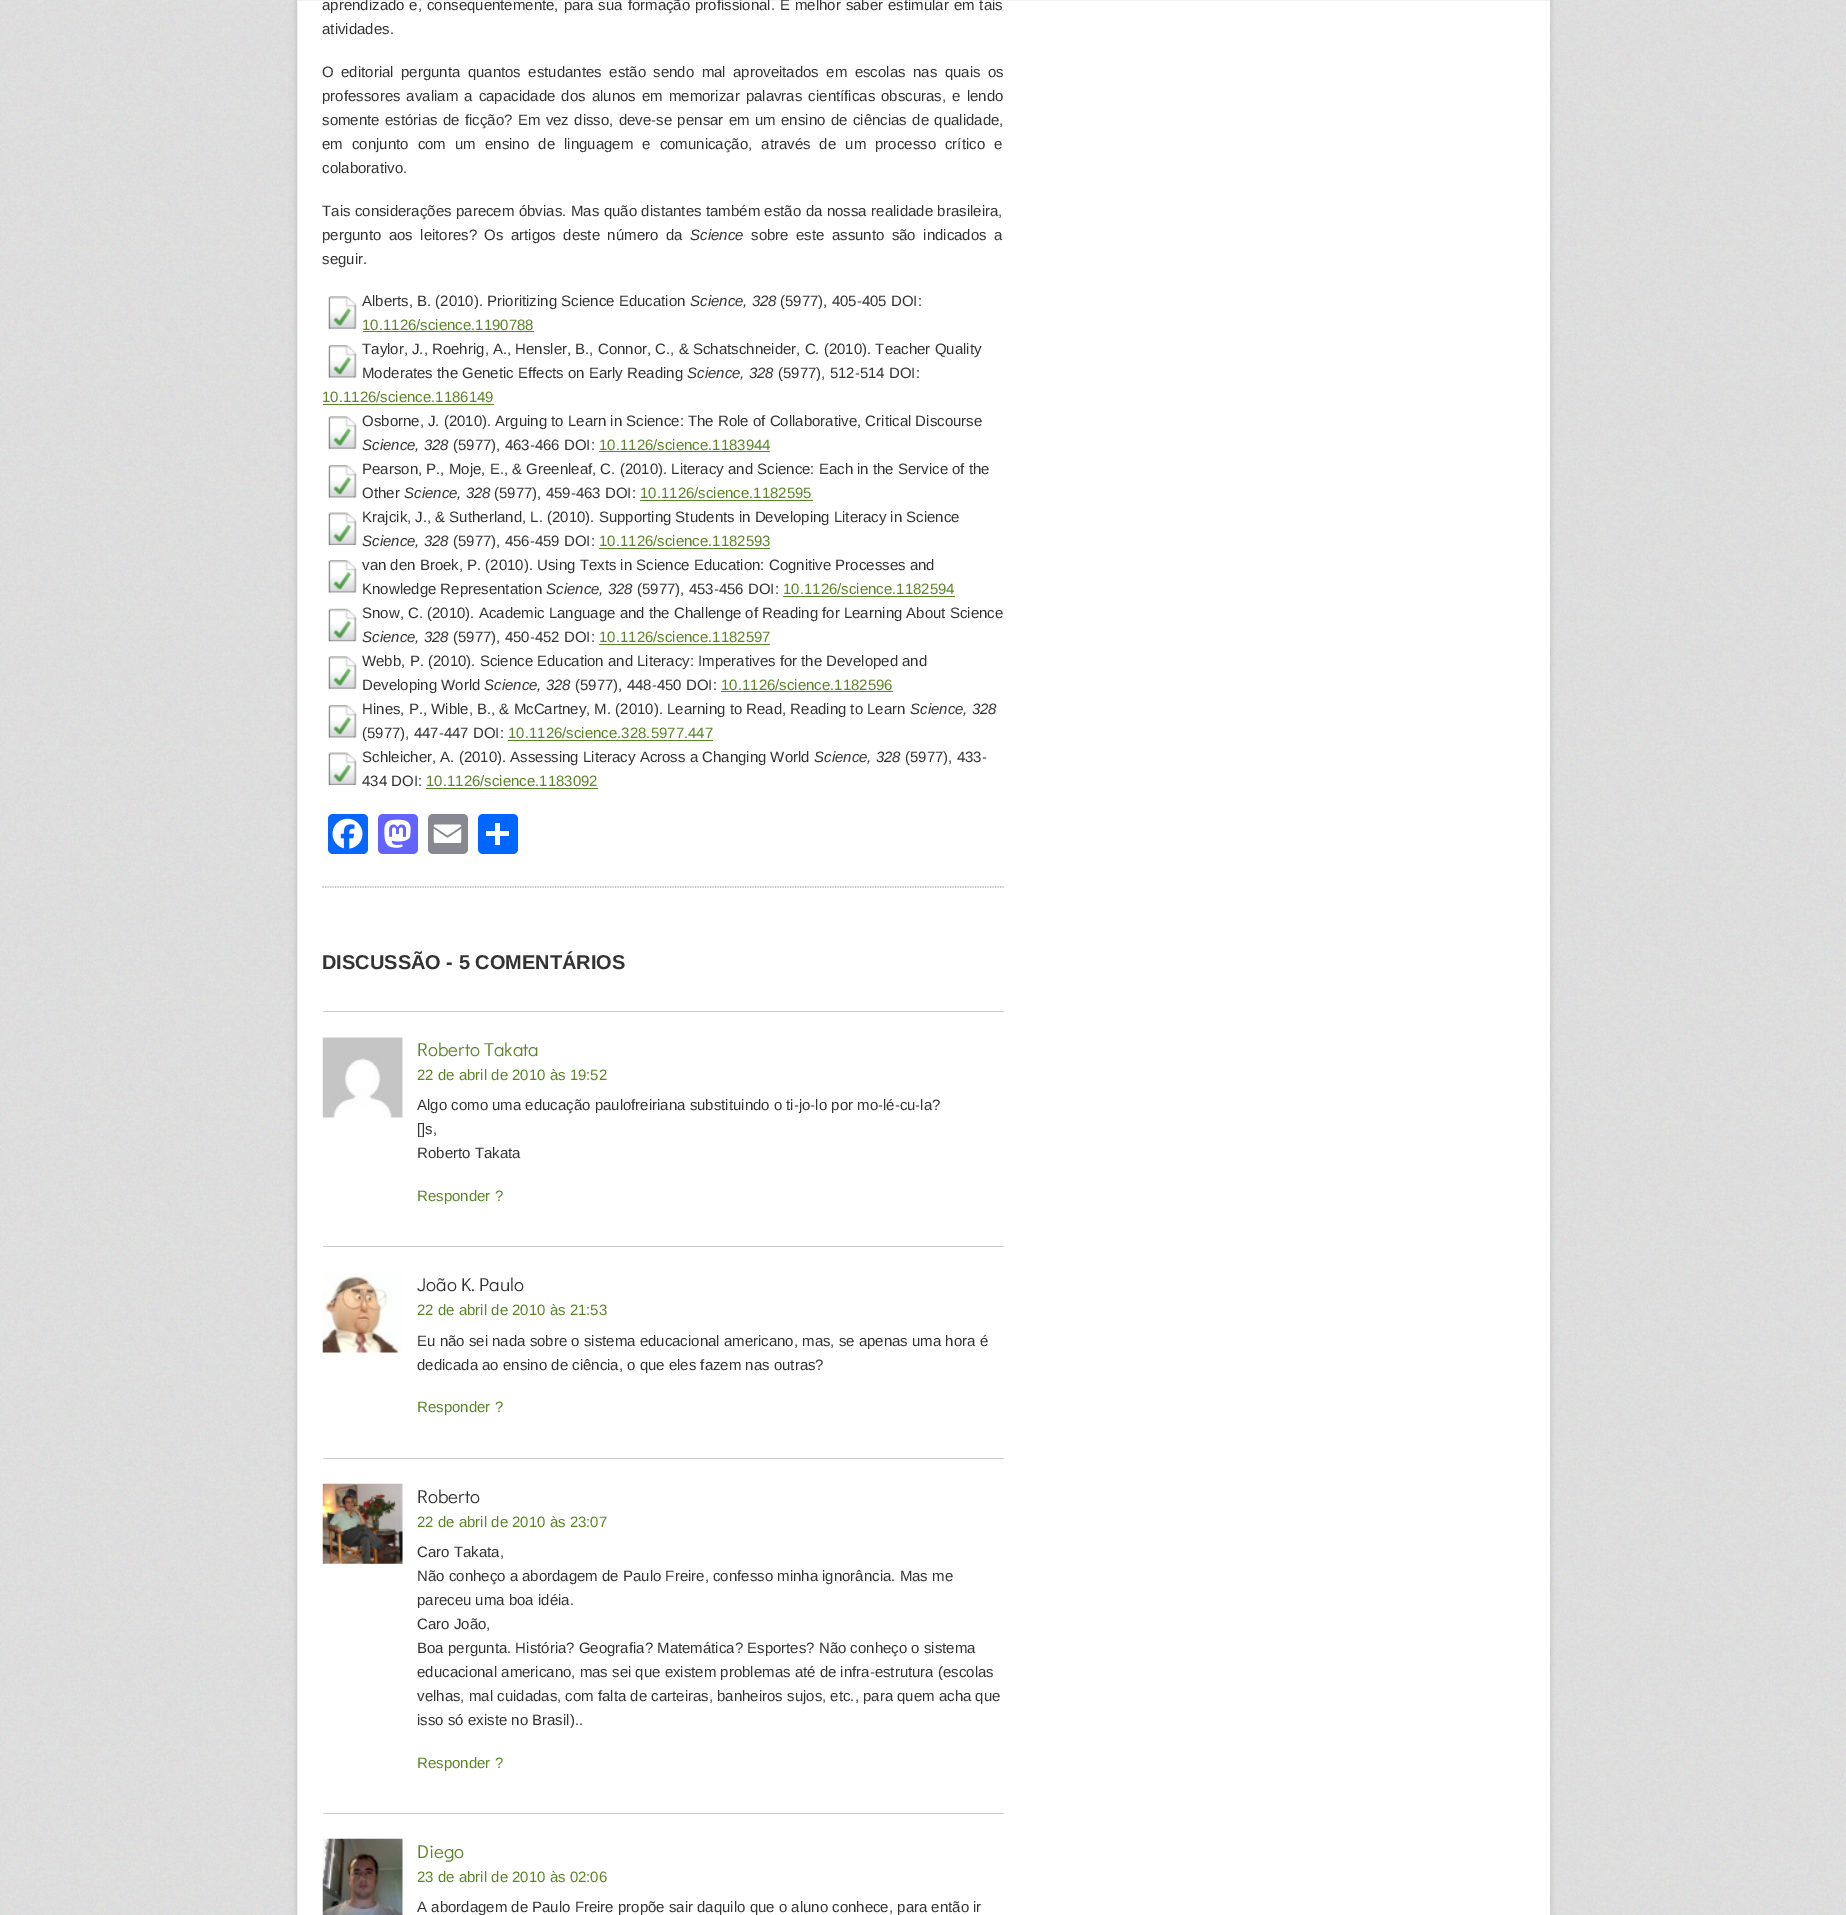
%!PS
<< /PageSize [1846 1915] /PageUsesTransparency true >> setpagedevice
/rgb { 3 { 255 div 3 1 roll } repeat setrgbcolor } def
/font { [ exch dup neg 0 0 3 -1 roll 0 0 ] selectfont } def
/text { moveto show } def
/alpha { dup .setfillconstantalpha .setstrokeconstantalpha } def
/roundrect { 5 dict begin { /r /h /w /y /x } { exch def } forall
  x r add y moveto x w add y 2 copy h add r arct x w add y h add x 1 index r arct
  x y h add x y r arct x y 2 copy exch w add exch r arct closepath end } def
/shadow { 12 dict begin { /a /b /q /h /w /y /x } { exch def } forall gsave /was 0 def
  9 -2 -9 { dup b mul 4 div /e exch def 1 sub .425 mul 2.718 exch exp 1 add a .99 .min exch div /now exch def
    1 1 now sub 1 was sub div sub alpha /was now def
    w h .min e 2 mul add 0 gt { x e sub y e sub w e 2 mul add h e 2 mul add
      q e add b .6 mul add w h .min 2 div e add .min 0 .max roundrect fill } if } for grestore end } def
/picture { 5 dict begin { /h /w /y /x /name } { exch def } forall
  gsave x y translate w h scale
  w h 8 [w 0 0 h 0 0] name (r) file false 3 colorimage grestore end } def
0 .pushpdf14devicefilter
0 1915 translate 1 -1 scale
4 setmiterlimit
255 255 255 rgb
0 0 1846 1915 rectfill
(img_01.rgb) 0 0 1846 1915 picture
0 0 0 rgb
296 -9 1255 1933 0 3 0.1 shadow
255 255 255 rgb
296.5 -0.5 moveto 1254 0 rlineto 0 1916 rlineto -1254 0 rlineto closepath gsave fill grestore
204 204 204 rgb
stroke
170 170 170 rgb
1.2 setlinewidth
[1.25 1.25] 0 setdash
322.5 887 moveto 681.5 0 rlineto stroke
(img_02.rgb) 328 296 29 33 picture
89 133 39 rgb
363 331 171 1 rectfill
(img_03.rgb) 328 345 29 33 picture
323 404 171 1 rectfill
(img_02.rgb) 328 416 29 33 picture
599 451 171 1 rectfill
(img_03.rgb) 328 465 29 33 picture
640 500 173 1 rectfill
(img_04.rgb) 328 512 29 33 picture
599 548 171 1 rectfill
(img_03.rgb) 328 560 29 33 picture
783 596 172 1 rectfill
(img_05.rgb) 328 608 29 34 picture
599 644 171 1 rectfill
(img_02.rgb) 328 656 29 33 picture
721 691 172 1 rectfill
(img_03.rgb) 328 705 29 33 picture
508 740 205 1 rectfill
(img_06.rgb) 328 752 29 33 picture
426 788 172 1 rectfill
8 102 255 rgb
328 814 40 40 5 roundrect fill
(img_07.rgb) 332 818 31 31 picture
99 100 255 rgb
378 814 40 40 5 roundrect fill
(img_08.rgb) 384 819 27 29 picture
136 137 144 rgb
428 814 40 40 5 roundrect fill
(img_09.rgb) 433 824 29 19 picture
1 102 255 rgb
478 814 40 40 5 roundrect fill
255 255 255 rgb
495 823 5 22 rectfill
486 831 23 5 rectfill
204 204 204 rgb
323 1011 681 1 rectfill
(img_10.rgb) 322 1037 81 81 picture
323 1246 681 1 rectfill
(img_11.rgb) 322 1272 81 81 picture
323 1458 681 1 rectfill
(img_12.rgb) 322 1483 81 81 picture
323 1813 681 1 rectfill
(img_13.rgb) 322 1838 81 77 picture
/LiberationSans-Regular 15 font
51 51 51 rgb
322 10 moveto 0.75 0 32 (aprendizado e, consequentemente, para sua formação profissional. É melhor saber estimular em tais) widthshow
(atividades.) 322 34 text
322 77 moveto 3.25 0 32 (O editorial pergunta quantos estudantes estão sendo mal aproveitados em escolas nas quais os) widthshow
322 101 moveto 1.9 0 32 (professores avaliam a capacidade dos alunos em memorizar palavras científicas obscuras, e lendo) widthshow
322 125 moveto 1.2 0 32 (somente estórias de ficção? Em vez disso, deve-se pensar em um ensino de ciências de qualidade,) widthshow
322 149 moveto 4.9 0 32 (em conjunto com um ensino de linguagem e comunicação, através de um processo crítico e) widthshow
(colaborativo.) 322 173 text
322 216 moveto 0.3 0 32 (Tais considerações parecem óbvias. Mas quão distantes também estão da nossa realidade brasileira,) widthshow
322 240 moveto 3.25 0 32 (pergunto aos leitores? Os artigos deste número da) widthshow
/LiberationSans-Italic 15 font
(Science) 690 240 text
/LiberationSans-Regular 15 font
751 240 moveto 3.25 0 32 (sobre este assunto são indicados a) widthshow
(seguir.) 322 264 text
(Alberts, B. \(2010\). Prioritizing Science Education) 362 306 text
/LiberationSans-Italic 15 font
(Science, 328) 690 306 text
/LiberationSans-Regular 15 font
(\(5977\), 405-405 DOI:) 780 306 text
89 133 39 rgb
(10.1126/science.1190788) 362 330 text
51 51 51 rgb
(Taylor, J., Roehrig, A., Hensler, B., Connor, C., & Schatschneider, C. \(2010\). Teacher Quality) 362 354 text
(Moderates the Genetic Effects on Early Reading) 362 378 text
/LiberationSans-Italic 15 font
(Science, 328) 687 378 text
/LiberationSans-Regular 15 font
(\(5977\), 512-514 DOI:) 778 378 text
89 133 39 rgb
(10.1126/science.1186149) 322 402 text
51 51 51 rgb
(Osborne, J. \(2010\). Arguing to Learn in Science: The Role of Collaborative, Critical Discourse) 362 426 text
/LiberationSans-Italic 15 font
(Science, 328) 362 450 text
/LiberationSans-Regular 15 font
(\(5977\), 463-466 DOI:) 453 450 text
89 133 39 rgb
(10.1126/science.1183944) 599 450 text
51 51 51 rgb
(Pearson, P., Moje, E., & Greenleaf, C. \(2010\). Literacy and Science: Each in the Service of the) 362 474 text
(Other) 362 498 text
/LiberationSans-Italic 15 font
(Science, 328) 404 498 text
/LiberationSans-Regular 15 font
(\(5977\), 459-463 DOI:) 494 498 text
89 133 39 rgb
(10.1126/science.1182595) 640 498 text
51 51 51 rgb
(Krajcik, J., & Sutherland, L. \(2010\). Supporting Students in Developing Literacy in Science) 362 522 text
/LiberationSans-Italic 15 font
(Science, 328) 362 546 text
/LiberationSans-Regular 15 font
(\(5977\), 456-459 DOI:) 453 546 text
89 133 39 rgb
(10.1126/science.1182593) 599 546 text
51 51 51 rgb
(van den Broek, P. \(2010\). Using Texts in Science Education: Cognitive Processes and) 362 570 text
(Knowledge Representation) 362 594 text
/LiberationSans-Italic 15 font
(Science, 328) 546 594 text
/LiberationSans-Regular 15 font
(\(5977\), 453-456 DOI:) 637 594 text
89 133 39 rgb
(10.1126/science.1182594) 783 594 text
51 51 51 rgb
(Snow, C. \(2010\). Academic Language and the Challenge of Reading for Learning About Science) 362 618 text
/LiberationSans-Italic 15 font
(Science, 328) 362 642 text
/LiberationSans-Regular 15 font
(\(5977\), 450-452 DOI:) 453 642 text
89 133 39 rgb
(10.1126/science.1182597) 599 642 text
51 51 51 rgb
(Webb, P. \(2010\). Science Education and Literacy: Imperatives for the Developed and) 362 666 text
(Developing World) 362 690 text
/LiberationSans-Italic 15 font
(Science, 328) 484 690 text
/LiberationSans-Regular 15 font
(\(5977\), 448-450 DOI:) 575 690 text
89 133 39 rgb
(10.1126/science.1182596) 721 690 text
51 51 51 rgb
(Hines, P., Wible, B., & McCartney, M. \(2010\). Learning to Read, Reading to Learn) 362 714 text
/LiberationSans-Italic 15 font
(Science, 328) 910 714 text
/LiberationSans-Regular 15 font
(\(5977\), 447-447 DOI:) 362 738 text
89 133 39 rgb
(10.1126/science.328.5977.447) 508 738 text
51 51 51 rgb
(Schleicher, A. \(2010\). Assessing Literacy Across a Changing World) 362 762 text
/LiberationSans-Italic 15 font
(Science, 328) 814 762 text
/LiberationSans-Regular 15 font
(\(5977\), 433-) 905 762 text
(434 DOI:) 362 786 text
89 133 39 rgb
(10.1126/science.1183092) 426 786 text
/LiberationSans-Bold 20 font
51 51 51 rgb
(DISCUSSÃO - 5 COMENTÁRIOS) 322 969 text
/DidactGothic-Regular 18.75 font
89 133 39 rgb
(Roberto Takata) 417 1056 text
/LiberationSans-Regular 15 font
(22 de abril de 2010 às 19:52) 417 1080 text
51 51 51 rgb
(Algo como uma educação paulofreiriana substituindo o ti-jo-lo por mo-lé-cu-la?) 417 1110 text
([]s,) 417 1134 text
(Roberto Takata) 417 1158 text
89 133 39 rgb
(Responder ?) 417 1201 text
/DidactGothic-Regular 18.75 font
51 51 51 rgb
(João K. Paulo) 417 1291 text
/LiberationSans-Regular 15 font
89 133 39 rgb
(22 de abril de 2010 às 21:53) 417 1315 text
51 51 51 rgb
(Eu não sei nada sobre o sistema educacional americano, mas, se apenas uma hora é) 417 1346 text
(dedicada ao ensino de ciência, o que eles fazem nas outras?) 417 1370 text
89 133 39 rgb
(Responder ?) 417 1412 text
/DidactGothic-Regular 18.75 font
51 51 51 rgb
(Roberto) 417 1503 text
/LiberationSans-Regular 15 font
89 133 39 rgb
(22 de abril de 2010 às 23:07) 417 1527 text
51 51 51 rgb
(Caro Takata,) 417 1557 text
(Não conheço a abordagem de Paulo Freire, confesso minha ignorância. Mas me) 417 1581 text
(pareceu uma boa idéia.) 417 1605 text
(Caro João,) 417 1629 text
(Boa pergunta. História? Geografia? Matemática? Esportes? Não conheço o sistema) 417 1653 text
(educacional americano, mas sei que existem problemas até de infra-estrutura \(escolas) 417 1677 text
(velhas, mal cuidadas, com falta de carteiras, banheiros sujos, etc., para quem acha que) 417 1701 text
(isso só existe no Brasil\)..) 417 1725 text
89 133 39 rgb
(Responder ?) 417 1768 text
/DidactGothic-Regular 18.75 font
(Diego) 417 1858 text
/LiberationSans-Regular 15 font
(23 de abril de 2010 às 02:06) 417 1882 text
51 51 51 rgb
(A abordagem de Paulo Freire propõe sair daquilo que o aluno conhece, para então ir) 417 1912 text
.poppdf14devicefilter showpage
